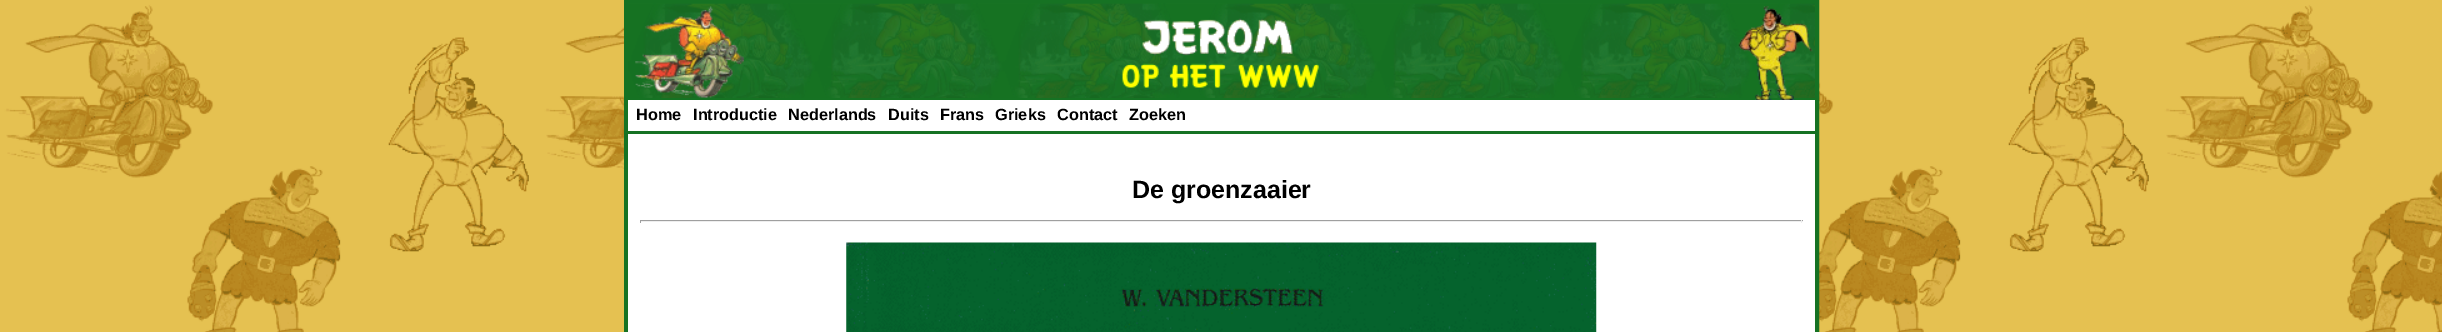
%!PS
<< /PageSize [2442 332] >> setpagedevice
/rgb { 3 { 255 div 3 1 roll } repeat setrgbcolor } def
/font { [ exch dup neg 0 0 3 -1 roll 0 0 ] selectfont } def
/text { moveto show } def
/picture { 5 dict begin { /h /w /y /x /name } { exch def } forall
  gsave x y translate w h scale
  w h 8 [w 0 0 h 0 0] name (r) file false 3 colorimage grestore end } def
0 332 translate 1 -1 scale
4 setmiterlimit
255 255 255 rgb
0 0 2442 332 rectfill
(img_01.rgb) 0 0 2442 332 picture
22 114 35 rgb
4 setlinewidth
626 -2 1191 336 rectstroke
628 0 1187 4 rectfill
(img_02.rgb) 628 3 1187 95 picture
(img_03.rgb) 635 6 109 92 picture
(img_04.rgb) 1122 18 197 70 picture
628 98 1187 2 rectfill
(img_05.rgb) 1738 6 75 94 picture
255 255 255 rgb
628 100 1187 31 rectfill
22 114 35 rgb
628 131 1187 3 rectfill
255 255 255 rgb
628 134 1187 198 rectfill
159 159 159 rgb
640 220 1163 1 rectfill
238 238 238 rgb
1801 220 1 3 rectfill
640 221 1163 1 rectfill
159 159 159 rgb
640 220 1 3 rectfill
(img_06.rgb) 846 242 751 90 picture
/LiberationSans-Bold 16.25 font
0 0 0 rgb
(Home) 636 120 text
(Introductie) 693 120 text
(Nederlands) 788 120 text
(Duits) 888 120 text
(Frans) 940 120 text
(Grieks) 995 120 text
(Contact) 1057 120 text
(Zoeken) 1129 120 text
/LiberationSans-Bold 25 font
(De groenzaaier) 1132 198 text
showpage
